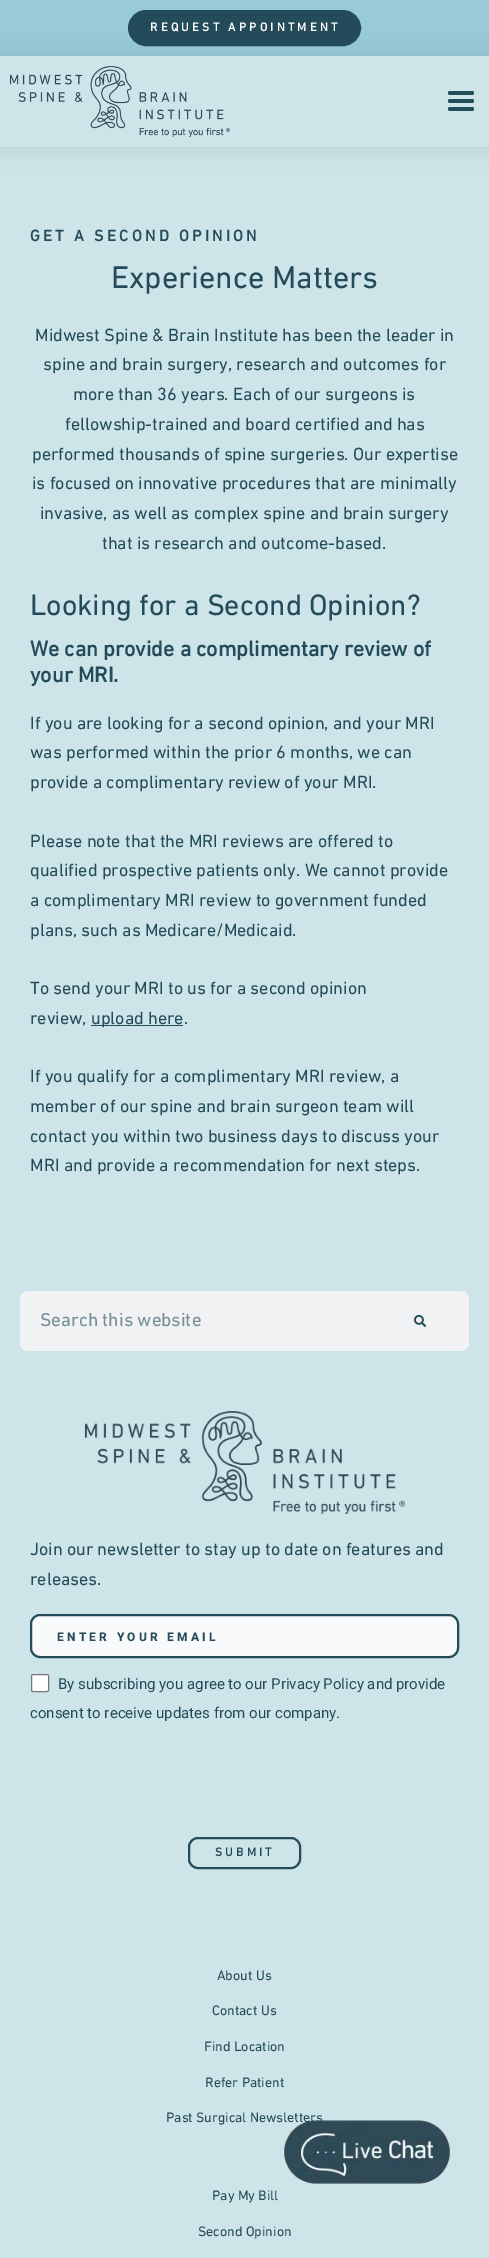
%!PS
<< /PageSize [489 2258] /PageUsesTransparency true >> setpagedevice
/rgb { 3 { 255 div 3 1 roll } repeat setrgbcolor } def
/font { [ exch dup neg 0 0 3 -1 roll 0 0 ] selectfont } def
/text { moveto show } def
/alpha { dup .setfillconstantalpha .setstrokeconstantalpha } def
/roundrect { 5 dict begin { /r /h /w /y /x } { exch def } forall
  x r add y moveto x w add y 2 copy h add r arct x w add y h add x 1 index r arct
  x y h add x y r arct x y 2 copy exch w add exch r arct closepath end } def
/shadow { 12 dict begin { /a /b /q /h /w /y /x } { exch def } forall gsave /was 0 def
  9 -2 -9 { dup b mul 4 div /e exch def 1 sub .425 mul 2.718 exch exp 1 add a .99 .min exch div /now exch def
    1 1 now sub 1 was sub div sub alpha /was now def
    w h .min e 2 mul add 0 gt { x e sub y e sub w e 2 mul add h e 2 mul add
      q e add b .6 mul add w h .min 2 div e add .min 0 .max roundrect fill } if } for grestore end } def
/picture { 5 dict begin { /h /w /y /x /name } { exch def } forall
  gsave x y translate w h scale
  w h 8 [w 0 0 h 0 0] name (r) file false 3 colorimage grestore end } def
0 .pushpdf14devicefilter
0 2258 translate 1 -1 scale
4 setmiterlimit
153 202 217 rgb
0 0 489 2258 rectfill
36 75 89 rgb
129 11 231 34 17 roundrect gsave fill grestore
2 setlinewidth
stroke
205 228 232 rgb
0 147 489 2111 rectfill
0 0 0 rgb
-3 53 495 97 0 10 0.07 shadow
205 228 232 rgb
0 56 489 91 rectfill
(img_01.rgb) 10 66 220 71 picture
36 75 89 rgb
448 99 26 4 2 roundrect fill
448 91 26 4 2 roundrect fill
448 107 26 4 2 roundrect fill
91 1025 92 1 rectfill
241 242 243 rgb
20 1291 449 60 8 roundrect fill
(img_02.rgb) 414 1314 12 13 picture
(img_03.rgb) 85 1411 320 103 picture
249 250 251 rgb
31 1615 427 42 9 roundrect gsave fill grestore
36 75 89 rgb
stroke
255 255 255 rgb
31.5 1674.5 17 17 1.5 roundrect gsave fill grestore
118 118 118 rgb
1 setlinewidth
stroke
36 75 89 rgb
2 setlinewidth
189 1838 111 30 9 roundrect stroke
/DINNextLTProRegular-Bold 12 font
255 255 255 rgb
150 31 moveto 3.25 0 (REQUEST APPOINTMENT) ashow
/DINNextLTProRegular-Bold 16 font
36 75 89 rgb
30 241 moveto 3.25 0 (GET A SECOND OPINION) ashow
/DINNextLTProRegular-Regular 32 font
(Experience Matters) 111 288 text
/DINNextLTProRegular-Regular 18 font
(Midwest Spine & Brain Institute has been the leader in) 35 341 text
(spine and brain surgery, research and outcomes for) 43 370 text
(more than 36 years. Each of our surgeons is) 73 400 text
(fellowship-trained and board certified and has) 65 430 text
(performed thousands of spine surgeries. Our expertise) 32 460 text
(is focused on innovative procedures that are minimally) 32 489 text
(invasive, as well as complex spine and brain surgery) 40 519 text
(that is research and outcome-based.) 102 549 text
/DINNextLTProRegular-Regular 30 font
(Looking for a Second Opinion?) 30 615 text
/DINNextLTProRegular-Bold 21.9 font
(We can provide a complimentary review of) 30 656 text
(your MRI.) 30 682 text
/DINNextLTProRegular-Regular 18 font
(If you are looking for a second opinion, and your MRI) 30 729 text
(was performed within the prior 6 months, we can) 30 758 text
(provide a complimentary review of your MRI.) 30 788 text
(Please note that the MRI reviews are offered to) 30 847 text
(qualified prospective patients only. We cannot provide) 30 876 text
(a complimentary MRI review to government funded) 30 906 text
(plans, such as Medicare/Medicaid.) 30 936 text
(To send your MRI to us for a second opinion) 30 994 text
(review,) 30 1024 text
(upload here.) 91 1024 text
(If you qualify for a complimentary MRI review, a) 30 1082 text
(member of our spine and brain surgeon team will) 30 1112 text
(contact you within two business days to discuss your) 30 1142 text
(MRI and provide a recommendation for next steps.) 30 1171 text
/DINNextLTProRegular-Regular 19 font
118 142 151 rgb
(Search this website) 40 1326 text
/DINNextLTProRegular-Regular 18 font
36 75 89 rgb
(Join our newsletter to stay up to date on features and) 30 1555 text
(releases.) 30 1585 text
/Roboto-ExtraBold 12 font
57 1641 moveto 3.25 0 (ENTER YOUR EMAIL) ashow
/Roboto-Regular 15 font
(By subscribing you agree to our Privacy Policy and provide) 58 1689 text
(consent to receive updates from our company.) 30 1718 text
/DINNextLTProRegular-Bold 12 font
215 1856 moveto 3.25 0 (SUBMIT) ashow
/DINNextLTProRegular-Regular 14 font
(About Us) 217 1980 text
(Contact Us) 212 2015 text
(Find Location) 204 2051 text
(Refer Patient) 205 2087 text
(Past Surgical Newsletters) 166 2122 text
(Pay My Bill) 212 2200 text
(Second Opinion) 198 2236 text
(img_04.rgb) 284 2120 166 64 picture
.poppdf14devicefilter showpage
